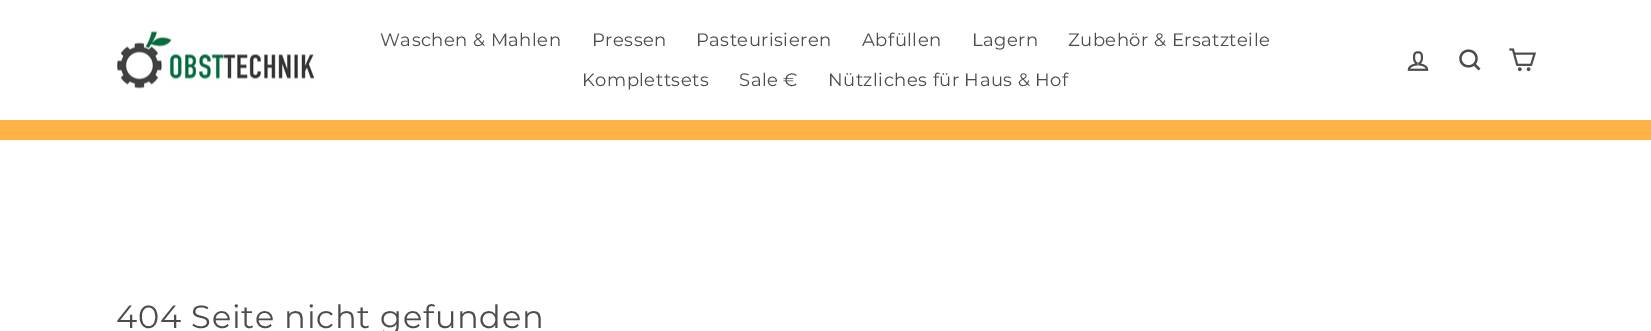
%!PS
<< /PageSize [1651 331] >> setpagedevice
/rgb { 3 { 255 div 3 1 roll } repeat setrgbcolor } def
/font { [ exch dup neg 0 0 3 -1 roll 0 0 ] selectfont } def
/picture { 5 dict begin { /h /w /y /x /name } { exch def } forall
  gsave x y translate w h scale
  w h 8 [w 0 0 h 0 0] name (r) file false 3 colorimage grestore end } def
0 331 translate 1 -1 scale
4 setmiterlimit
255 255 255 rgb
0 0 1651 331 rectfill
(img_01.rgb) 117 30 198 59 picture
(img_02.rgb) 1407 51 22 20 picture
76 76 76 rgb
2.2 setlinewidth
1476.5 58.5 moveto 0 10.5 -16 10.5 -16 0 rcurveto 0 -10.5 16 -10.5 16 0 rcurveto closepath 1479.5 69.5 moveto -5 -5 rlineto stroke
(img_03.rgb) 1509 48 27 24 picture
255 179 71 rgb
0 120 1651 20 rectfill
/Montserrat-Regular 18 font
76 76 76 rgb
380 46 moveto 0.45 0 (Waschen & Mahlen) ashow
592 46 moveto 0.45 0 (Pressen) ashow
696 46 moveto 0.45 0 (Pasteurisieren) ashow
862 46 moveto 0.45 0 (Abfüllen) ashow
972 46 moveto 0.45 0 (Lagern) ashow
1068 46 moveto 0.45 0 (Zubehör & Ersatzteile) ashow
582 86 moveto 0.45 0 (Komplettsets) ashow
739 86 moveto 0.45 0 (Sale €) ashow
828 86 moveto 0.45 0 (Nützliches für Haus & Hof) ashow
/Montserrat-Regular 32 font
116 328 moveto 0.8 0 (404 Seite nicht gefunden) ashow
showpage
